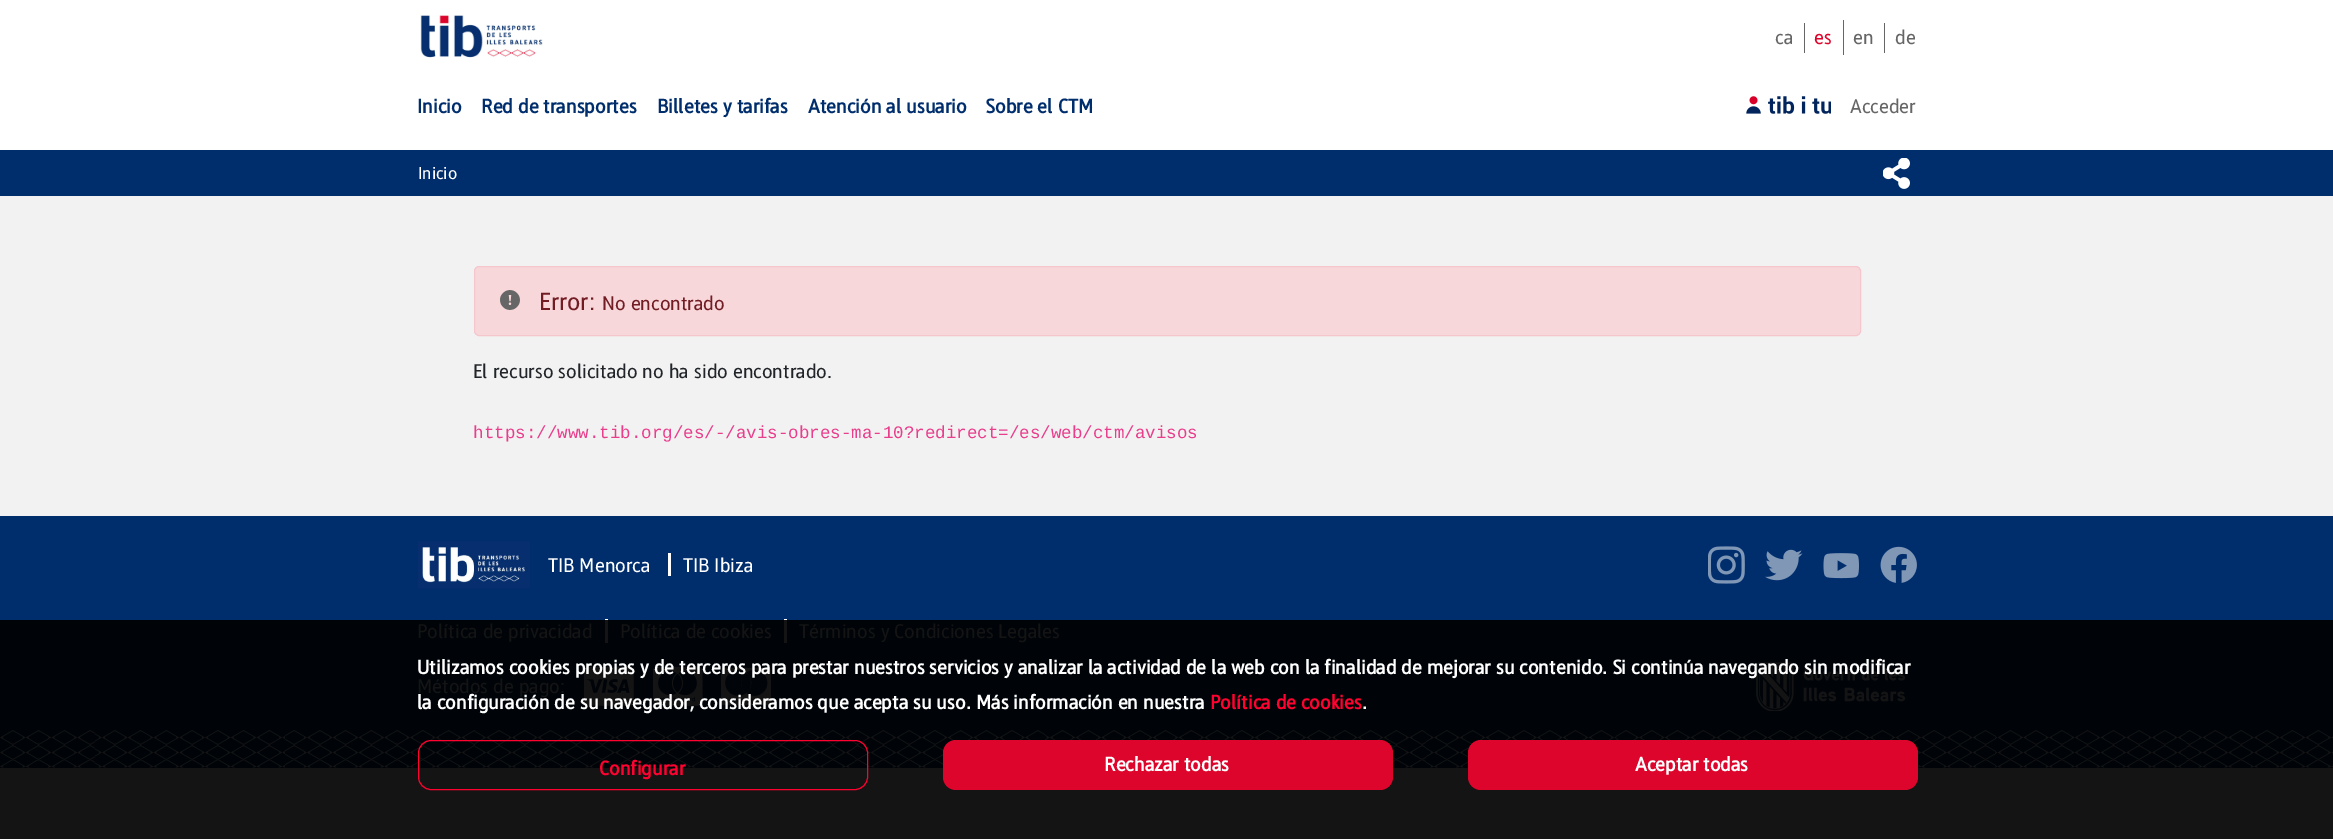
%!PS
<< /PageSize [2333 839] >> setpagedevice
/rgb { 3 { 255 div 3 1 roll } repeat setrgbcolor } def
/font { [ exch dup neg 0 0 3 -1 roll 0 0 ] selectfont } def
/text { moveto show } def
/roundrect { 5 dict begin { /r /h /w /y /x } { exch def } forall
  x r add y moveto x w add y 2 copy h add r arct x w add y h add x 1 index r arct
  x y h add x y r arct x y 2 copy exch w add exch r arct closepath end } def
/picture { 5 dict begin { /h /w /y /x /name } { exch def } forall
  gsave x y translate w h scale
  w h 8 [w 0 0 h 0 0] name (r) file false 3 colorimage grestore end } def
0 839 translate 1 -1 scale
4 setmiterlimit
255 255 255 rgb
0 0 2333 839 rectfill
20 20 20 rgb
0 768 2333 71 rectfill
(img_01.rgb) 420 15 123 43 picture
102 102 102 rgb
1804 23 1 30 rectfill
1843 20 1 35 rectfill
1884 23 1 30 rectfill
(img_02.rgb) 1746 96 85 18 picture
0 46 109 rgb
0 150 2333 46 rectfill
(img_03.rgb) 1883 158 27 31 picture
242 242 242 rgb
0 196 2333 320 rectfill
248 215 218 rgb
474.5 266.5 1386 69 4.5 roundrect gsave fill grestore
245 198 203 rgb
stroke
(img_04.rgb) 500 290 20 20 picture
0 4 9 rgb
0 620 2333 148 rectfill
(img_14.rgb) 0 730 2333 38 picture
255 2 48 rgb
418.5 740.5 449 49 12.5 roundrect stroke
221 5 43 rgb
943 740 450 50 13 roundrect fill
1468 740 450 50 13 roundrect fill
0 46 109 rgb
0 516 2333 104 rectfill
(img_05.rgb) 418 541 112 48 picture
255 255 255 rgb
668 553 3 23 rectfill
(img_06.rgb) 1708 546 37 38 picture
(img_07.rgb) 1765 549 38 32 picture
(img_08.rgb) 1823 553 36 26 picture
(img_09.rgb) 1880 546 37 37 picture
605 619 3 1 rectfill
20 20 20 rgb
605 620 3 23 rectfill
255 255 255 rgb
784 619 3 1 rectfill
20 20 20 rgb
784 620 3 23 rectfill
(img_10.rgb) 584 666 50 40 picture
(img_11.rgb) 653 666 50 40 picture
(img_12.rgb) 721 667 50 38 picture
(img_13.rgb) 1756 662 150 49 picture
/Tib-Regular 20 font
102 102 102 rgb
(ca) 1775 44 text
221 5 43 rgb
(es) 1814 44 text
102 102 102 rgb
(en) 1853 44 text
(de) 1895 44 text
/Tib-Bold 20 font
0 46 109 rgb
(Inicio) 417 113 text
(Red de transportes) 481 113 text
(Billetes y tarifas) 657 113 text
(Atención al usuario) 808 113 text
(Sobre el CTM) 986 113 text
/Tib-Regular 20 font
102 102 102 rgb
(Acceder) 1850 113 text
/Tib-Regular 17.5 font
255 255 255 rgb
(Inicio) 418 179 text
/Tib-Regular 25 font
114 28 36 rgb
(Error:) 539 310 text
/Tib-Regular 20 font
(No encontrado) 602 310 text
33 37 41 rgb
(El recurso solicitado no ha sido encontrado.) 473 378 text
/LiberationMono-Regular 17.5 font
232 62 140 rgb
(https://www.tib.org/es/-/avis-obres-ma-10?redirect=/es/web/ctm/avisos) 473 438 text
/Tib-Bold 20 font
255 255 255 rgb
(Utilizamos cookies propias y de terceros para prestar nuestros servicios y analizar la actividad de la web con la finalidad de mejorar su contenido. Si continúa navegando sin modificar) 417 674 text
(la configuración de su navegador, consideramos que acepta su uso. Más información en nuestra) 417 709 text
255 2 48 rgb
(Política de cookies) 1210 709 text
255 255 255 rgb
(.) 1362 709 text
255 2 48 rgb
(Configurar) 599 775 text
255 255 255 rgb
(Rechazar todas) 1104 771 text
(Aceptar todas) 1635 771 text
/Tib-Regular 20 font
(TIB Menorca) 548 572 text
(TIB Ibiza) 683 572 text
20 20 20 rgb
(Política de privacidad) 417 638 text
(Política de cookies) 620 638 text
(Términos y Condiciones Legales) 799 638 text
(Métodos de pago:) 417 693 text
showpage
